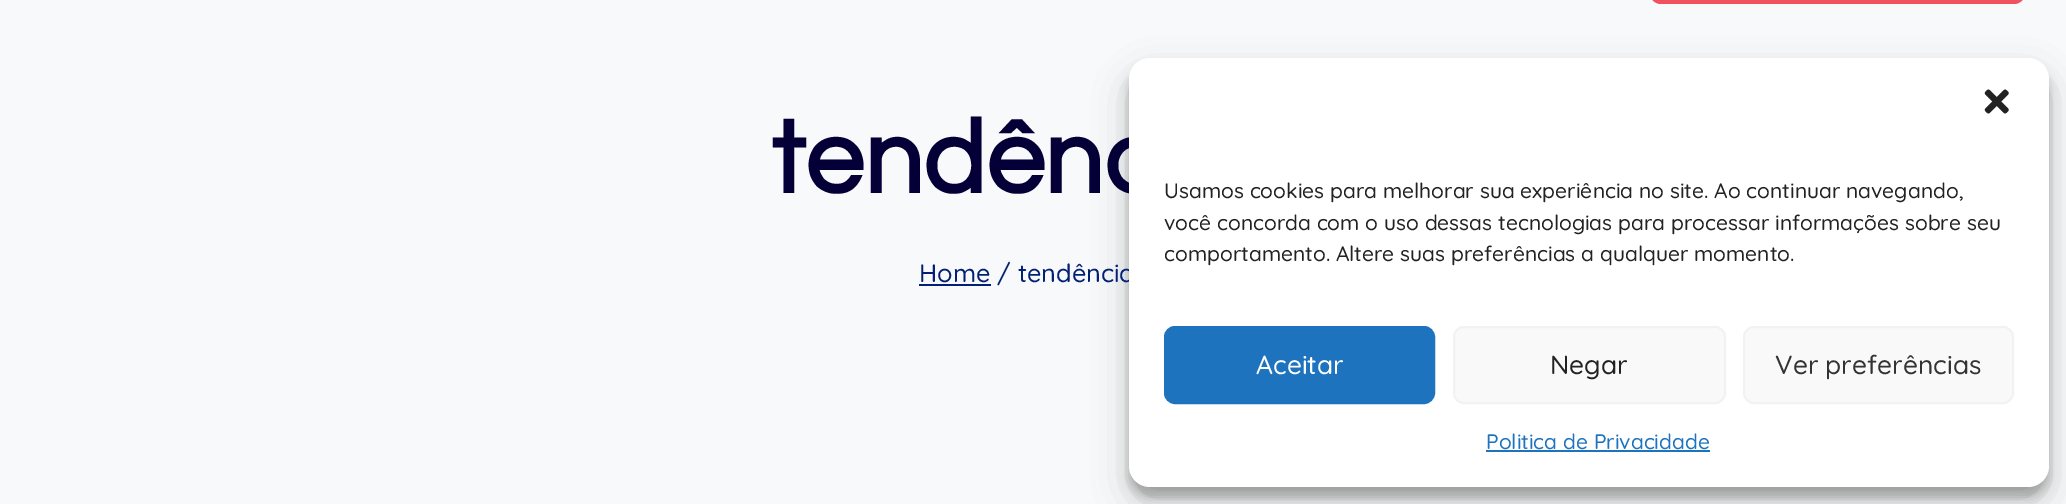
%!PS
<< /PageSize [2066 504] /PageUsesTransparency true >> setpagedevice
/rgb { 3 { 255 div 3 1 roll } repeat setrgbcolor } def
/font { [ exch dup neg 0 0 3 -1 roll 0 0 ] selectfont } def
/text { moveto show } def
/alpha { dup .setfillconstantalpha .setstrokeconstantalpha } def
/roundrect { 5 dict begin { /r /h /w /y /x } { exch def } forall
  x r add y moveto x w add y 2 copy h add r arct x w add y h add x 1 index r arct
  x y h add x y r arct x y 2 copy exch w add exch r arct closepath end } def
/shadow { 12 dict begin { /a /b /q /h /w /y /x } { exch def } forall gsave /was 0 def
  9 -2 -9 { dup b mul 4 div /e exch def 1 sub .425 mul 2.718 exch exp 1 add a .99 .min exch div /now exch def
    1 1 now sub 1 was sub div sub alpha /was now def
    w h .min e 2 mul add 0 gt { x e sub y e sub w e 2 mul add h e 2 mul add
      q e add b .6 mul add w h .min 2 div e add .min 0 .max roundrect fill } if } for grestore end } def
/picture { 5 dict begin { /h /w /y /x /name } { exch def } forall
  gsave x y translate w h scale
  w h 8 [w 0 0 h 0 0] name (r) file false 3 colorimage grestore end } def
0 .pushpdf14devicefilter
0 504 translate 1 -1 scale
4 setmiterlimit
248 249 250 rgb
0 0 2066 504 rectfill
242 82 96 rgb
1650 -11 375 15 11 roundrect fill
3 32 117 rgb
919 284 72 2 rectfill
0 0 0 rgb
1129 68 920 429 21 5 0.23 shadow
1129 75 920 429 21 17.5 0.19 shadow
/Questrial-Bold 105 font
4 0 55 rgb
(tendênc) 771 193 text
/Quicksand-Medium 25.25 font
3 32 117 rgb
(Home / tendência) 919 282 text
255 255 255 rgb
1129 58 920 429 21 roundrect fill
(img_01.rgb) 1984 89 25 25 picture
/Quicksand-Medium 21 font
34 34 34 rgb
(Usamos cookies para melhorar sua experiência no site. Ao continuar navegando,) 1164 198 text
(você concorda com o uso dessas tecnologias para processar informações sobre seu) 1164 230 text
(comportamento. Altere suas preferências a qualquer momento.) 1164 261 text
30 115 190 rgb
1165 327 269 76 10 roundrect gsave fill grestore
2 setlinewidth
stroke
/Quicksand-Medium 26.25 font
255 255 255 rgb
(Aceitar) 1256 374 text
249 249 249 rgb
1454 327 271 76 10 roundrect gsave fill grestore
242 242 242 rgb
stroke
34 34 34 rgb
(Negar) 1550 374 text
249 249 249 rgb
1744 327 269 76 10 roundrect gsave fill grestore
242 242 242 rgb
stroke
51 51 51 rgb
(Ver preferências) 1775 374 text
/Quicksand-Medium 21 font
30 115 190 rgb
(Politica de Privacidade) 1486 449 text
1486 450 224 2 rectfill
.poppdf14devicefilter showpage
